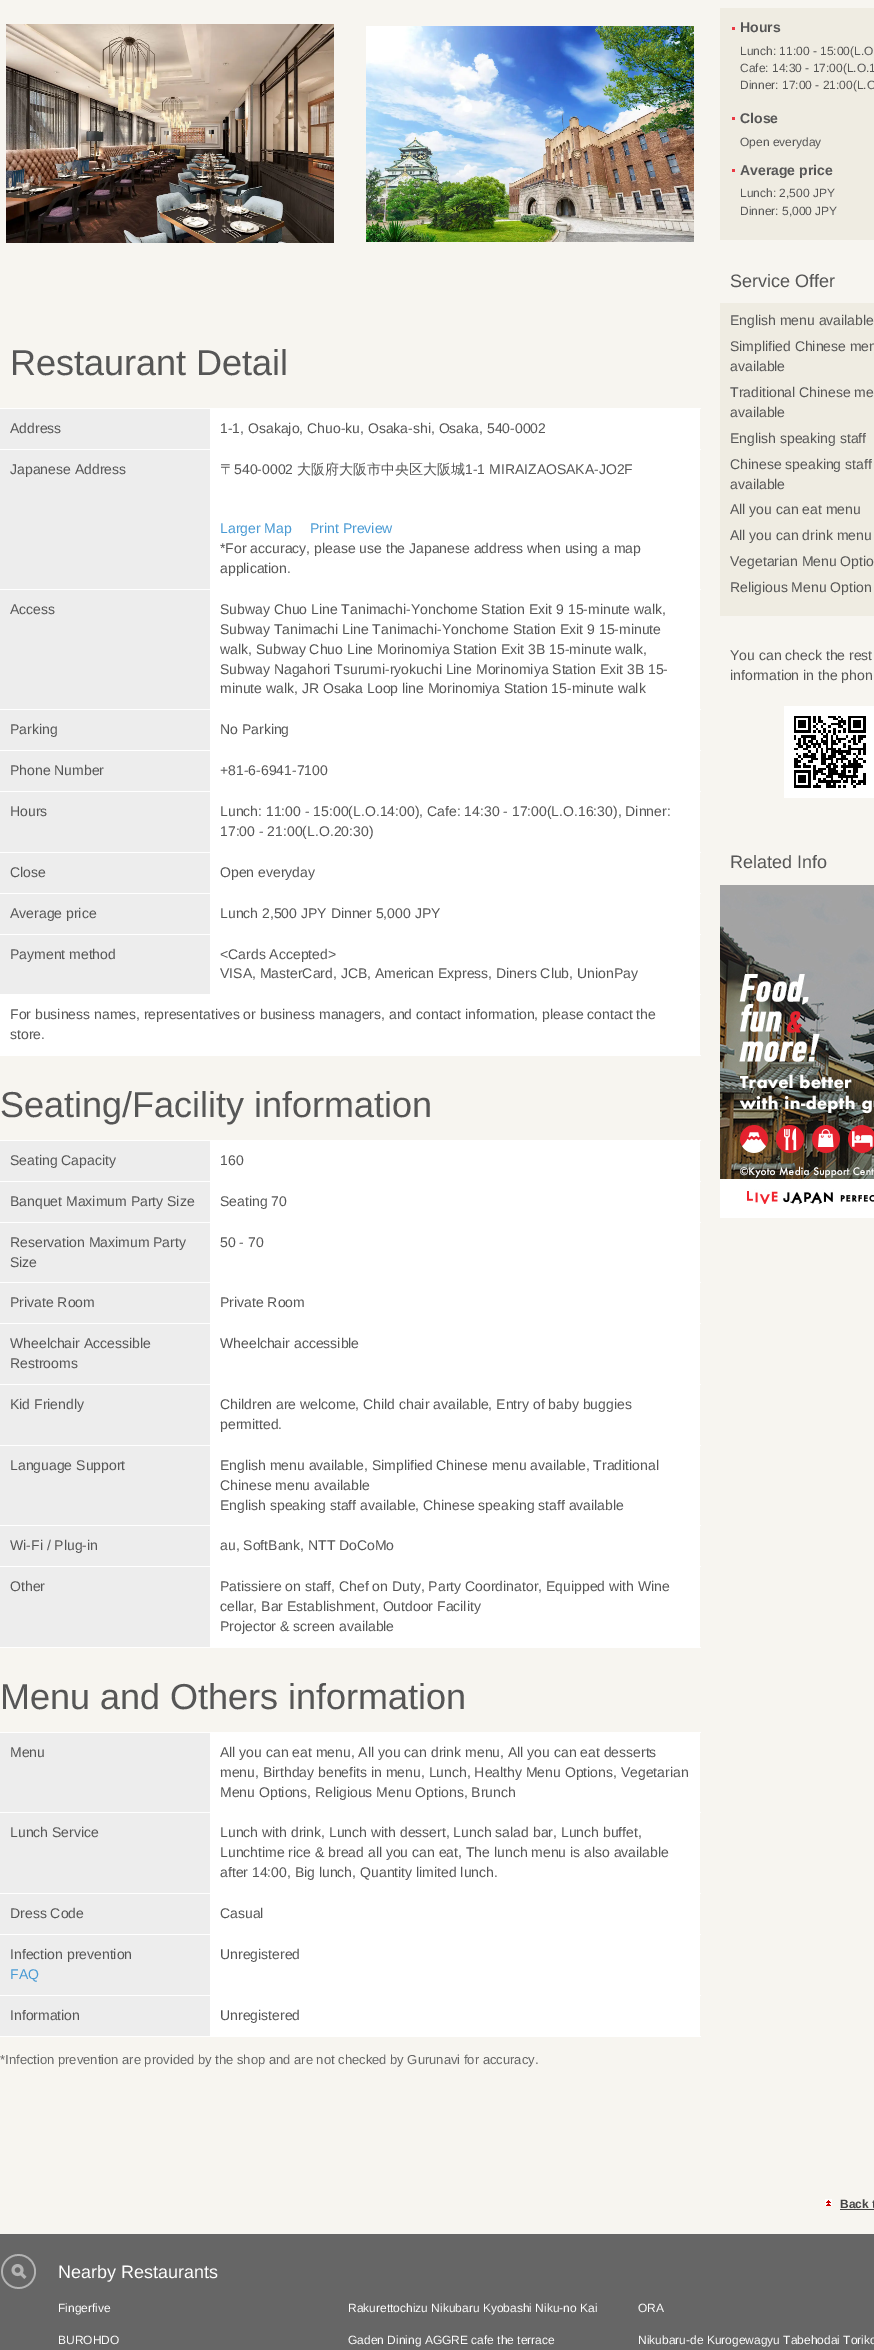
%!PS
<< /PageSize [874 2350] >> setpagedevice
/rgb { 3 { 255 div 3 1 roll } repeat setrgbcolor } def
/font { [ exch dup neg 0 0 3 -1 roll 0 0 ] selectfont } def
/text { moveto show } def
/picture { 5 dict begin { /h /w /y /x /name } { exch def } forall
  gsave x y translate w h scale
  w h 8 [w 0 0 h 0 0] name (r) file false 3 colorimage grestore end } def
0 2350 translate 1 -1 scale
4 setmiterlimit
247 245 240 rgb
0 0 874 2350 rectfill
(img_01.rgb) 6 24 328 219 picture
(img_02.rgb) 366 26 328 216 picture
237 237 237 rgb
0 409 210 40 rectfill
255 255 255 rgb
210 409 490 40 rectfill
0 408 701 1 rectfill
237 237 237 rgb
0 450 210 139 rectfill
255 255 255 rgb
210 450 490 139 rectfill
0 449 701 1 rectfill
237 237 237 rgb
0 590 210 119 rectfill
255 255 255 rgb
210 590 490 119 rectfill
0 589 701 1 rectfill
237 237 237 rgb
0 710 210 40 rectfill
255 255 255 rgb
210 710 490 40 rectfill
0 709 701 1 rectfill
237 237 237 rgb
0 751 210 40 rectfill
255 255 255 rgb
210 751 490 40 rectfill
0 750 701 1 rectfill
237 237 237 rgb
0 792 210 60 rectfill
255 255 255 rgb
210 792 490 60 rectfill
0 791 701 1 rectfill
237 237 237 rgb
0 853 210 40 rectfill
255 255 255 rgb
210 853 490 40 rectfill
0 852 701 1 rectfill
237 237 237 rgb
0 894 210 40 rectfill
255 255 255 rgb
210 894 490 40 rectfill
0 893 701 1 rectfill
237 237 237 rgb
0 935 210 59 rectfill
255 255 255 rgb
210 935 490 59 rectfill
0 934 701 1 rectfill
0 995 700 60 rectfill
0 994 701 1 rectfill
0 1055 701 1 rectfill
237 237 237 rgb
0 1141 210 40 rectfill
255 255 255 rgb
210 1141 490 40 rectfill
0 1140 701 1 rectfill
237 237 237 rgb
0 1182 210 40 rectfill
255 255 255 rgb
210 1182 490 40 rectfill
0 1181 701 1 rectfill
237 237 237 rgb
0 1223 210 59 rectfill
255 255 255 rgb
210 1223 490 59 rectfill
0 1222 701 1 rectfill
237 237 237 rgb
0 1283 210 40 rectfill
255 255 255 rgb
210 1283 490 40 rectfill
0 1282 701 1 rectfill
237 237 237 rgb
0 1324 210 60 rectfill
255 255 255 rgb
210 1324 490 60 rectfill
0 1323 701 1 rectfill
237 237 237 rgb
0 1385 210 60 rectfill
255 255 255 rgb
210 1385 490 60 rectfill
0 1384 701 1 rectfill
237 237 237 rgb
0 1446 210 79 rectfill
255 255 255 rgb
210 1446 490 79 rectfill
0 1445 701 1 rectfill
237 237 237 rgb
0 1526 210 40 rectfill
255 255 255 rgb
210 1526 490 40 rectfill
0 1525 701 1 rectfill
237 237 237 rgb
0 1567 210 80 rectfill
255 255 255 rgb
210 1567 490 80 rectfill
0 1566 701 1 rectfill
0 1647 701 1 rectfill
237 237 237 rgb
0 1733 210 79 rectfill
255 255 255 rgb
210 1733 490 79 rectfill
0 1732 701 1 rectfill
237 237 237 rgb
0 1813 210 80 rectfill
255 255 255 rgb
210 1813 490 80 rectfill
0 1812 701 1 rectfill
237 237 237 rgb
0 1894 210 40 rectfill
255 255 255 rgb
210 1894 490 40 rectfill
0 1893 701 1 rectfill
237 237 237 rgb
0 1935 210 60 rectfill
255 255 255 rgb
210 1935 490 60 rectfill
0 1934 701 1 rectfill
237 237 237 rgb
0 1996 210 40 rectfill
255 255 255 rgb
210 1996 490 40 rectfill
0 1995 701 1 rectfill
0 2036 701 1 rectfill
239 236 226 rgb
720 8 154 232 rectfill
234 57 68 rgb
732 27 3 3 rectfill
732 117 3 3 rectfill
732 169 3 3 rectfill
239 236 226 rgb
720 303 154 313 rectfill
(img_03.rgb) 784 706 90 92 picture
255 255 255 rgb
720 1204 154 14 rectfill
(img_04.rgb) 720 885 154 319 picture
(img_05.rgb) 825 2199 7 7 picture
68 68 68 rgb
840 2209 34 1 rectfill
102 102 102 rgb
0 2234 874 116 rectfill
(img_06.rgb) 1 2254 35 35 picture
/LiberationSans-Regular 36 font
86 86 86 rgb
(Restaurant Detail) 10 375 text
/LiberationSans-Regular 14 font
(Address) 10 433 text
(1-1, Osakajo, Chuo-ku, Osaka-shi, Osaka, 540-0002) 220 433 text
(Japanese Address) 10 474 text
/WenQuanYiZenHei-Medium 14 font
(〒) 220 474 text
/LiberationSans-Regular 14 font
(540-0002) 234 474 text
/WenQuanYiZenHei-Medium 14 font
(大阪府大阪市中央区大阪城) 297 474 text
/LiberationSans-Regular 14 font
(1-1 MIRAIZAOSAKA-JO2F) 465 474 text
72 154 212 rgb
(Larger Map) 220 533 text
(Print Preview) 310 533 text
86 86 86 rgb
(*For accuracy, please use the Japanese address when using a map) 220 553 text
(application.) 220 573 text
(Access) 10 614 text
(Subway Chuo Line Tanimachi-Yonchome Station Exit 9 15-minute walk,) 220 614 text
(Subway Tanimachi Line Tanimachi-Yonchome Station Exit 9 15-minute) 220 634 text
(walk, Subway Chuo Line Morinomiya Station Exit 3B 15-minute walk,) 220 654 text
(Subway Nagahori Tsurumi-ryokuchi Line Morinomiya Station Exit 3B 15-) 220 674 text
(minute walk, JR Osaka Loop line Morinomiya Station 15-minute walk) 220 693 text
(Parking) 10 734 text
(No Parking) 220 734 text
(Phone Number) 10 775 text
(+81-6-6941-7100) 220 775 text
(Hours) 10 816 text
(Lunch: 11:00 - 15:00\(L.O.14:00\), Cafe: 14:30 - 17:00\(L.O.16:30\), Dinner:) 220 816 text
(17:00 - 21:00\(L.O.20:30\)) 220 836 text
(Close) 10 877 text
(Open everyday) 220 877 text
(Average price) 10 918 text
(Lunch 2,500 JPY Dinner 5,000 JPY) 220 918 text
(Payment method) 10 959 text
(<Cards Accepted>) 220 959 text
(VISA, MasterCard, JCB, American Express, Diners Club, UnionPay) 220 978 text
(For business names, representatives or business managers, and contact information, please contact the) 10 1019 text
(store.) 10 1039 text
/LiberationSans-Regular 36 font
(Seating/Facility information) 0 1117 text
/LiberationSans-Regular 14 font
(Seating Capacity) 10 1165 text
(160) 220 1165 text
(Banquet Maximum Party Size) 10 1206 text
(Seating 70) 220 1206 text
(Reservation Maximum Party) 10 1247 text
(Size) 10 1267 text
(50 - 70) 220 1247 text
(Private Room) 10 1307 text
(Private Room) 220 1307 text
(Wheelchair Accessible) 10 1348 text
(Restrooms) 10 1368 text
(Wheelchair accessible) 220 1348 text
(Kid Friendly) 10 1409 text
(Children are welcome, Child chair available, Entry of baby buggies) 220 1409 text
(permitted.) 220 1429 text
(Language Support) 10 1470 text
(English menu available, Simplified Chinese menu available, Traditional) 220 1470 text
(Chinese menu available) 220 1490 text
(English speaking staff available, Chinese speaking staff available) 220 1510 text
(Wi-Fi / Plug-in) 10 1550 text
(au, SoftBank, NTT DoCoMo) 220 1550 text
(Other) 10 1591 text
(Patissiere on staff, Chef on Duty, Party Coordinator, Equipped with Wine) 220 1591 text
(cellar, Bar Establishment, Outdoor Facility) 220 1611 text
(Projector & screen available) 220 1631 text
/LiberationSans-Regular 36 font
(Menu and Others information) 0 1709 text
/LiberationSans-Regular 14 font
(Menu) 10 1757 text
(All you can eat menu, All you can drink menu, All you can eat desserts) 220 1757 text
(menu, Birthday benefits in menu, Lunch, Healthy Menu Options, Vegetarian) 220 1777 text
(Menu Options, Religious Menu Options, Brunch) 220 1797 text
(Lunch Service) 10 1837 text
(Lunch with drink, Lunch with dessert, Lunch salad bar, Lunch buffet,) 220 1837 text
(Lunchtime rice & bread all you can eat, The lunch menu is also available) 220 1857 text
(after 14:00, Big lunch, Quantity limited lunch.) 220 1877 text
(Dress Code) 10 1918 text
(Casual) 220 1918 text
(Infection prevention) 10 1959 text
72 154 212 rgb
(FAQ) 10 1979 text
86 86 86 rgb
(Unregistered) 220 1959 text
(Information) 10 2020 text
(Unregistered) 220 2020 text
/LiberationSans-Regular 13 font
102 102 102 rgb
(*Infection prevention are provided by the shop and are not checked by Gurunavi for accuracy.) 0 2064 text
/LiberationSans-Bold 14 font
86 86 86 rgb
(Hours) 740 32 text
/LiberationSans-Regular 12 font
(Lunch: 11:00 - 15:00\(L.O) 740 55 text
(Cafe: 14:30 - 17:00\(L.O.1) 740 72 text
(Dinner: 17:00 - 21:00\(L.O) 740 89 text
/LiberationSans-Bold 14 font
(Close) 740 123 text
/LiberationSans-Regular 12 font
(Open everyday) 740 146 text
/LiberationSans-Bold 14 font
(Average price) 740 175 text
/LiberationSans-Regular 12 font
(Lunch: 2,500 JPY) 740 197 text
(Dinner: 5,000 JPY) 740 215 text
/LiberationSans-Regular 18 font
(Service Offer) 730 287 text
/LiberationSans-Regular 14 font
(English menu available) 730 325 text
(Simplified Chinese men) 730 351 text
(available) 730 371 text
(Traditional Chinese me) 730 397 text
(available) 730 417 text
(English speaking staff) 730 443 text
(Chinese speaking staff) 730 469 text
(available) 730 489 text
(All you can eat menu) 730 514 text
(All you can drink menu) 730 540 text
(Vegetarian Menu Optio) 730 566 text
(Religious Menu Option) 730 592 text
(You can check the rest) 730 660 text
(information in the phon) 730 680 text
/LiberationSans-Regular 18 font
(Related Info) 730 868 text
/LiberationSans-Bold 12 font
68 68 68 rgb
(Back t) 840 2208 text
/LiberationSans-Regular 18 font
255 255 255 rgb
(Nearby Restaurants) 58 2278 text
/LiberationSans-Regular 12 font
(Fingerfive) 58 2312 text
(Rakurettochizu Nikubaru Kyobashi Niku-no Kai) 348 2312 text
(ORA) 638 2312 text
(BUROHDO) 58 2344 text
(Gaden Dining AGGRE cafe the terrace) 348 2344 text
(Nikubaru-de Kurogewagyu Tabehodai Toriko) 638 2344 text
showpage
